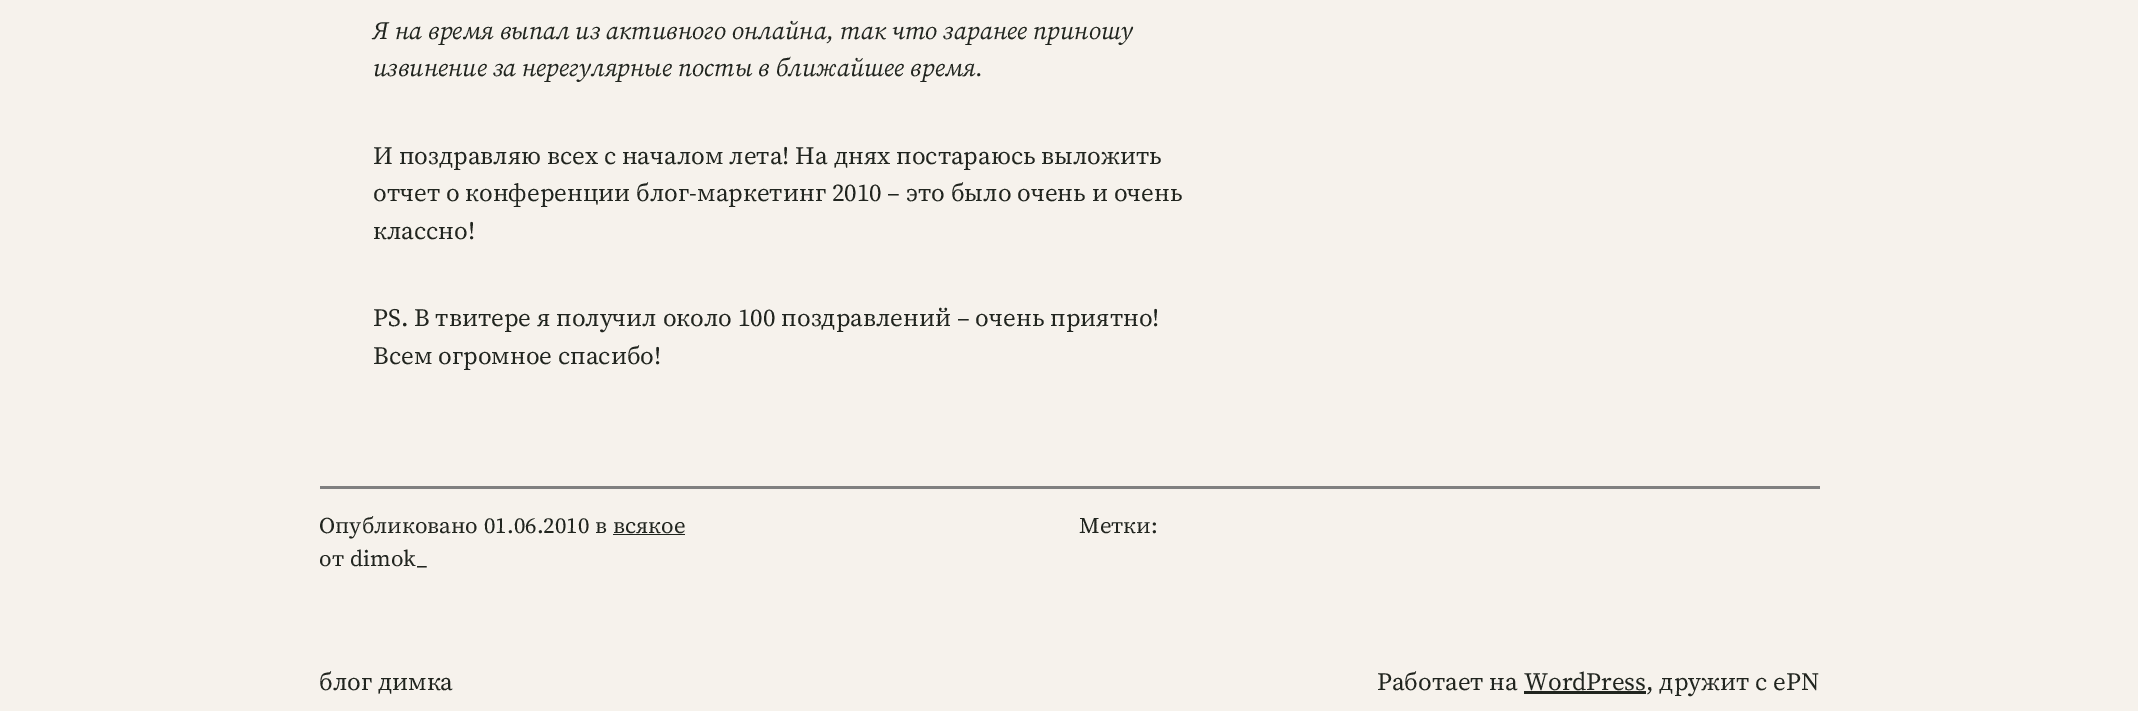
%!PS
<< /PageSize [2138 711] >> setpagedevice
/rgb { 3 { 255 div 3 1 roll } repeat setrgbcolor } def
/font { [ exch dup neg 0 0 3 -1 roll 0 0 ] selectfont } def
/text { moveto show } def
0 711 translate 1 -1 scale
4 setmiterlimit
246 242 236 rgb
0 0 2138 711 rectfill
128 128 128 rgb
320 486 1500 3 rectfill
33 37 31 rgb
613 534 72 1 rectfill
1524 691 122 3 rectfill
/SourceSerif4-Italic 25 font
(Я на время выпал из активного онлайна, так что заранее приношу) 373 39 text
(извинение за нерегулярные посты в ближайшее время.) 373 76 text
/SourceSerif4-Regular 25 font
(И поздравляю всех с началом лета! На днях постараюсь выложить) 373 164 text
(отчет о конференции блог-маркетинг 2010 – это было очень и очень) 373 201 text
(классно!) 373 239 text
(PS. В твитере я получил около 100 поздравлений – очень приятно!) 373 326 text
(Всем огромное спасибо!) 373 364 text
/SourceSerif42-Regular 22.5 font
(Опубликовано) 319 533 text
(01.06.2010) 484 533 text
(в) 595 533 text
(всякое) 613 533 text
(от) 319 566 text
(dimok_) 350 566 text
(Метки:) 1079 533 text
/SourceSerif4-Regular 25 font
(блог димка) 319 690 text
(Работает на WordPress, дружит с ePN) 1377 690 text
showpage
